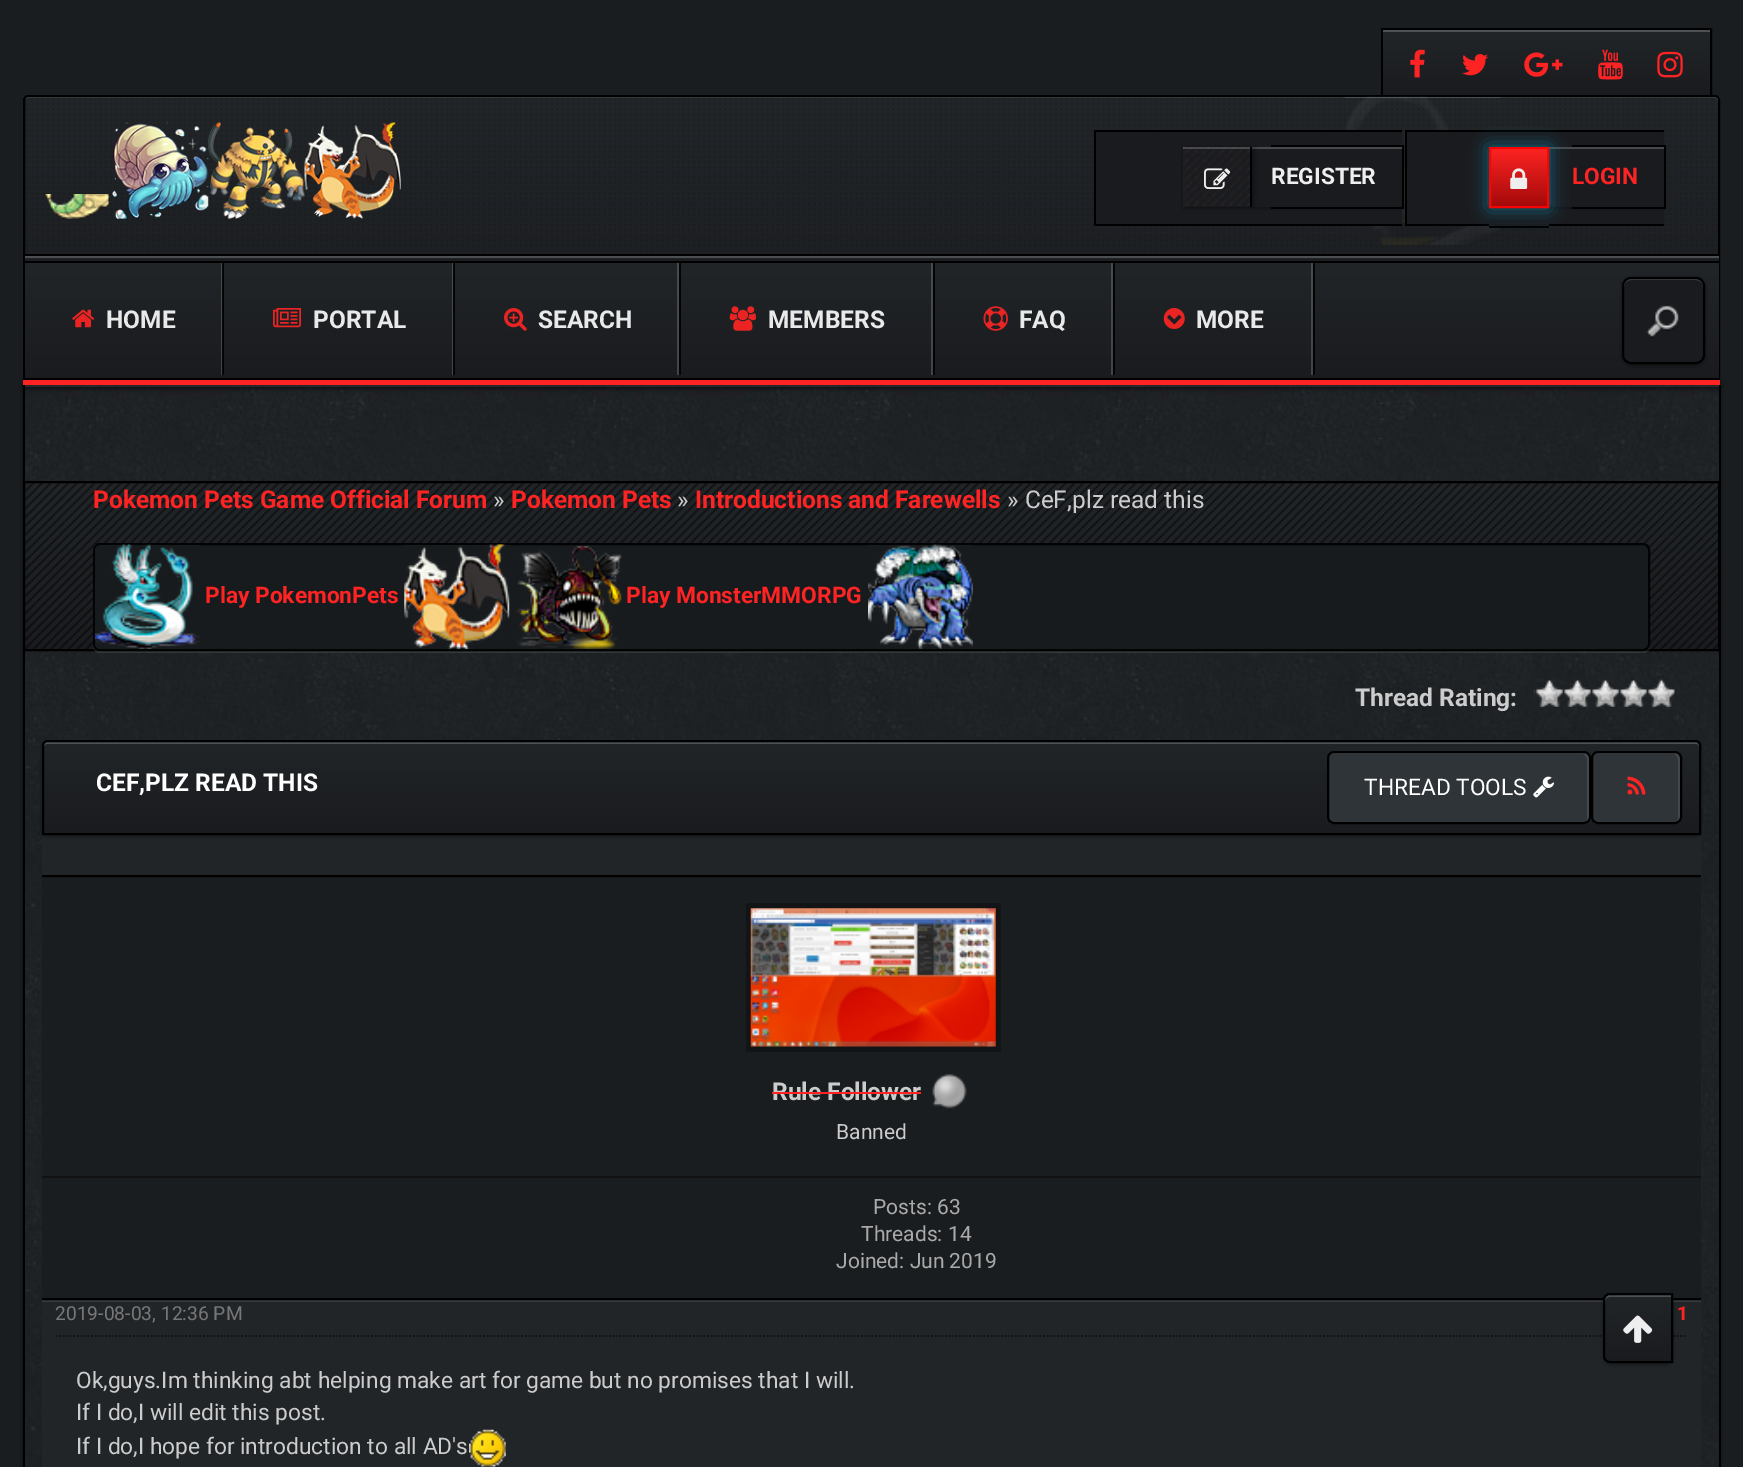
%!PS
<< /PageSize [1743 1467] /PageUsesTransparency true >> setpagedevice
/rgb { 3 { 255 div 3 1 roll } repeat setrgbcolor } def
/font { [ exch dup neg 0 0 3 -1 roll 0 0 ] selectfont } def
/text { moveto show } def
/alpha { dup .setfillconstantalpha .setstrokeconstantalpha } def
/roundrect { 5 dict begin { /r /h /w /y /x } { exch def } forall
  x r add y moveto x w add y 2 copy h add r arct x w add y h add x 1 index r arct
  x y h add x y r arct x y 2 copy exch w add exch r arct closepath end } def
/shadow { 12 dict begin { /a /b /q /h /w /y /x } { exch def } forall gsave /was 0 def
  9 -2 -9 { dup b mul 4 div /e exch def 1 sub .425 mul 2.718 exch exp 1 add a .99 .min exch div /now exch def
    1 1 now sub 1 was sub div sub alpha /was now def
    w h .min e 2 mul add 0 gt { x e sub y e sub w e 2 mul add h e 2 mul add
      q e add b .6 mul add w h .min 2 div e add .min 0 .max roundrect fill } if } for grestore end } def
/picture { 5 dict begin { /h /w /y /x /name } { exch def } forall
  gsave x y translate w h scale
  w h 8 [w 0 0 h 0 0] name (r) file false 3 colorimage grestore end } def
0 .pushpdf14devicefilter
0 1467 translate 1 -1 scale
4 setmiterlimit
26 29 31 rgb
0 0 1743 1467 rectfill
0 0 0 rgb
2 setlinewidth
1382 29 329 66 rectstroke
gsave 1383 32 moveto 61 0 rlineto 0 63 rlineto -61 0 rlineto closepath clip newpath
<< /ShadingType 2 /ColorSpace /DeviceRGB /Coords [1413 95 1413 30] /Extend [true true] /Function << /FunctionType 2 /Domain [0 1] /C0 [0.102 0.106 0.122] /C1 [0.129 0.145 0.157] /N 1 >> >> shfill grestore
77 81 83 rgb
1383 30 327 2 rectfill
(img_01.rgb) 1410 49 15 29 picture
gsave 1444 32 moveto 63 0 rlineto 0 63 rlineto -63 0 rlineto closepath clip newpath
<< /ShadingType 2 /ColorSpace /DeviceRGB /Coords [1475 95 1475 30] /Extend [true true] /Function << /FunctionType 2 /Domain [0 1] /C0 [0.102 0.106 0.122] /C1 [0.129 0.145 0.157] /N 1 >> >> shfill grestore
(img_02.rgb) 1462 54 26 22 picture
gsave 1507 32 moveto 73 0 rlineto 0 63 rlineto -73 0 rlineto closepath clip newpath
<< /ShadingType 2 /ColorSpace /DeviceRGB /Coords [1544 95 1544 30] /Extend [true true] /Function << /FunctionType 2 /Domain [0 1] /C0 [0.102 0.106 0.122] /C1 [0.129 0.145 0.157] /N 1 >> >> shfill grestore
(img_03.rgb) 1524 52 39 25 picture
gsave 1580 32 moveto 60 0 rlineto 0 63 rlineto -60 0 rlineto closepath clip newpath
<< /ShadingType 2 /ColorSpace /DeviceRGB /Coords [1610 95 1610 30] /Extend [true true] /Function << /FunctionType 2 /Domain [0 1] /C0 [0.102 0.106 0.122] /C1 [0.129 0.145 0.157] /N 1 >> >> shfill grestore
(img_04.rgb) 1598 49 25 31 picture
gsave 1640 32 moveto 70 0 rlineto 0 63 rlineto -70 0 rlineto closepath clip newpath
<< /ShadingType 2 /ColorSpace /DeviceRGB /Coords [1675 95 1675 30] /Extend [true true] /Function << /FunctionType 2 /Domain [0 1] /C0 [0.102 0.106 0.122] /C1 [0.129 0.145 0.157] /N 1 >> >> shfill grestore
(img_05.rgb) 1657 51 26 27 picture
gsave
28 95 moveto 1687 0 rlineto 3 0 5 2 5 5 rcurveto 0 280 rlineto -1697 0 rlineto 0 -280 rlineto 0 -3 2 -5 5 -5 rcurveto closepath clip newpath
gsave 23 96 moveto 1697 0 rlineto 0 158 rlineto -1697 0 rlineto closepath clip newpath
<< /ShadingType 2 /ColorSpace /DeviceRGB /Coords [872 378 872 96] /Extend [true true] /Function << /FunctionType 2 /Domain [0 1] /C0 [0.102 0.106 0.122] /C1 [0.129 0.145 0.157] /N 1 >> >> shfill grestore
grestore
0 0 0 rgb
23 387 1697 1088 0 2.5 0.5 shadow
(img_20.rgb) 25 385 1694 1082 picture
0.2 alpha
255 255 255 rgb
25 385 1694 2 rectfill
1 alpha
0 0 0 rgb
1719 385 2 1082 rectfill
23 385 2 1082 rectfill
23 383 1697 5 0 2.5 0.6 shadow
0.2 alpha
255 255 255 rgb
28 98 moveto 1687 0 rlineto 2 0 3 2 3 4 rcurveto 0 276 rlineto 1 0 rlineto 0 -278 rlineto 0 -2 -2 -4 -4 -4 rcurveto -1686 0 rlineto -2 0 -4 2 -4 3 rcurveto closepath fill
1 alpha
0 0 0 rgb
28 96 moveto 1687 0 rlineto 2 0 4 2 4 4 rcurveto 0 279 rlineto -1695 0 rlineto 0 -279 rlineto 0 -2 2 -4 4 -4 rcurveto closepath stroke
(img_06.rgb) 26 98 1692 155 picture
(img_07.rgb) 44 194 67 25 picture
(img_08.rgb) 112 122 289 97 picture
(img_09.rgb) 1345 96 155 149 picture
26 27 31 rgb
1096 132 306 92 rectfill
0 0 0 rgb
1094 130 308 2 rectfill
1094 224 308 2 rectfill
1094 130 2 96 rectfill
1271 145 133 2 rectfill
1402 145 2 63 rectfill
1271 207 133 2 rectfill
1183 149 219 59 0 2.5 0.4 shadow
26 27 31 rgb
1183 149 219 58 rectfill
72 73 76 rgb
1252 147 150 2 rectfill
0 0 0 rgb
1187 147 68 60 0 2 0.3 shadow
(img_10.rgb) 1183 147 67 60 picture
0.2 alpha
255 255 255 rgb
1183 147 67 2 rectfill
1 alpha
0 0 0 rgb
1250 147 2 60 rectfill
(img_11.rgb) 1204 168 27 21 picture
26 27 31 rgb
1407 132 257 92 rectfill
0 0 0 rgb
1405 130 259 2 rectfill
1405 224 259 2 rectfill
1405 130 2 96 rectfill
26 27 31 rgb
1489 224 60 2 rectfill
0 0 0 rgb
1489 226 60 2 rectfill
1572 145 94 2 rectfill
1664 145 2 63 rectfill
1572 207 94 2 rectfill
1489 149 175 59 0 2.5 0.4 shadow
26 27 31 rgb
1549 149 115 58 rectfill
72 73 76 rgb
1549 147 115 2 rectfill
5 199 247 rgb
1489 147 60 61 0 9 0.5 shadow
gsave 1491 149 moveto 56 0 rlineto 0 57 rlineto -56 0 rlineto closepath clip newpath
<< /ShadingType 2 /ColorSpace /DeviceRGB /Coords [1519 208 1519 147] /Extend [true true] /Function << /FunctionType 2 /Domain [0 1] /C0 [0.631 0.035 0.035] /C1 [1 0.141 0.137] /N 1 >> >> shfill grestore
247 5 5 rgb
1490 148 58 59 rectstroke
(img_12.rgb) 1510 168 18 21 picture
gsave 25 258 moveto 1694 0 rlineto 0 3 rlineto -1694 0 rlineto closepath clip newpath
<< /ShadingType 2 /ColorSpace /DeviceRGB /Coords [872 261 872 256] /Extend [true true] /Function << /FunctionType 2 /Domain [0 1] /C0 [0.102 0.106 0.122] /C1 [0.129 0.145 0.157] /N 1 >> >> shfill grestore
76 79 81 rgb
25 256 1694 2 rectfill
0 0 0 rgb
25 254 1694 2 rectfill
25 261 1694 2 rectfill
gsave 25 263 moveto 1694 0 rlineto 0 115 rlineto -1694 0 rlineto closepath clip newpath
<< /ShadingType 2 /ColorSpace /DeviceRGB /Coords [872 378 872 263] /Extend [true true] /Function << /FunctionType 2 /Domain [0 1] /C0 [0.102 0.106 0.122] /C1 [0.129 0.145 0.157] /N 1 >> >> shfill grestore
0.18 alpha
250 250 250 rgb
221 263 2 112 rectfill
0.9 alpha
0 0 0 rgb
222 263 2 112 rectfill
1 alpha
(img_13.rgb) 72 309 23 19 picture
0.18 alpha
250 250 250 rgb
452 263 2 112 rectfill
0.9 alpha
0 0 0 rgb
453 263 2 112 rectfill
1 alpha
(img_14.rgb) 273 308 28 20 picture
0.18 alpha
250 250 250 rgb
677 263 2 112 rectfill
0.9 alpha
0 0 0 rgb
679 263 2 112 rectfill
1 alpha
(img_15.rgb) 504 308 23 23 picture
0.18 alpha
250 250 250 rgb
931 263 2 112 rectfill
0.9 alpha
0 0 0 rgb
933 263 2 112 rectfill
1 alpha
(img_16.rgb) 729 306 27 25 picture
0.18 alpha
250 250 250 rgb
1111 263 2 112 rectfill
0.9 alpha
0 0 0 rgb
1113 263 2 112 rectfill
1 alpha
(img_17.rgb) 983 306 25 25 picture
0.18 alpha
250 250 250 rgb
1311 263 2 112 rectfill
0.9 alpha
0 0 0 rgb
1313 263 2 112 rectfill
1 alpha
(img_18.rgb) 1163 308 22 21 picture
1622 278 83 88 9 2.5 0.4 shadow
26 27 31 rgb
1622 277 83 87 9 roundrect fill
72 73 76 rgb
1631 280 moveto 65 0 rlineto 4 0 7 3 7 7 rcurveto 0 -11 -9 -9 -18 -9 rcurveto -43 0 rlineto -9 0 -18 -2 -18 9 rcurveto 0 -4 3 -7 7 -7 rcurveto closepath fill
0 0 0 rgb
1623 278 81 85 8 roundrect stroke
(img_19.rgb) 1646 305 33 33 picture
255 36 35 rgb
23 380 1697 5 rectfill
gsave 25 483 moveto 1693 0 rlineto 0 166 rlineto -1693 0 rlineto closepath clip newpath
<< /ShadingType 2 /ColorSpace /DeviceRGB /Coords [872 651 872 481] /Extend [true true] /Function << /FunctionType 2 /Domain [0 1] /C0 [0.102 0.106 0.122] /C1 [0.129 0.145 0.157] /N 1 >> >> shfill grestore
(img_21.rgb) 25 483 1693 166 picture
0 0 0 rgb
24 482 1695 168 rectstroke
0.1 alpha
255 255 255 rgb
93 646 moveto 0 4 3 7 7 7 rcurveto 1543 0 rlineto 4 0 7 -3 7 -7 rcurveto -1 3 -4 5 -7 5 rcurveto -1543 0 rlineto -3 0 -6 -2 -7 -5 rcurveto closepath fill
1 alpha
24 27 30 rgb
93 543 1557 108 7 roundrect fill
0.9 alpha
0 0 0 rgb
94 544 1555 106 6 roundrect stroke
1 alpha
(img_22.rgb) 94 544 106 105 picture
(img_23.rgb) 404 544 106 106 picture
(img_24.rgb) 516 546 106 103 picture
(img_25.rgb) 868 544 105 105 picture
(img_26.rgb) 1534 680 141 27 picture
33 37 40 rgb
42 740 1659 727 rectfill
0 0 0 rgb
42 742 1659 95 5 2.5 0.3 shadow
gsave
47 740 moveto 1649 0 rlineto 3 0 5 2 5 5 rcurveto 0 90 rlineto -1659 0 rlineto 0 -90 rlineto 0 -3 2 -5 5 -5 rcurveto closepath clip newpath
gsave 42 742 moveto 1659 0 rlineto 0 91 rlineto -1659 0 rlineto closepath clip newpath
<< /ShadingType 2 /ColorSpace /DeviceRGB /Coords [872 833 872 742] /Extend [true true] /Function << /FunctionType 2 /Domain [0 1] /C0 [0.102 0.106 0.122] /C1 [0.129 0.145 0.157] /N 1 >> >> shfill grestore
grestore
77 81 83 rgb
47 744 moveto 1649 0 rlineto 2 0 3 1 3 3 rcurveto 0 -1 rlineto 0 -2 -2 -4 -4 -4 rcurveto -1647 0 rlineto -2 0 -4 2 -4 4 rcurveto 0 1 rlineto 0 -2 1 -3 3 -3 rcurveto closepath fill
0 0 0 rgb
47 741 moveto 1649 0 rlineto 2 0 4 2 4 4 rcurveto 0 89 rlineto -1657 0 rlineto 0 -89 rlineto 0 -2 2 -4 4 -4 rcurveto closepath stroke
46 52 56 rgb
1327 751 264 73 7 roundrect fill
66 72 75 rgb
1332 754 moveto 250 0 rlineto 3 0 5 3 5 6 rcurveto 0 59 rlineto 0 2 -1 3 -2 4 rcurveto 3 -1 4 -3 4 -5 rcurveto 0 -60 rlineto 0 -3 -2 -5 -5 -5 rcurveto -251 0 rlineto -2 0 -3 1 -4 2 rcurveto closepath fill
0 0 0 rgb
1328 752 262 71 6 roundrect stroke
(img_27.rgb) 1533 776 22 22 picture
46 52 56 rgb
1591 751 91 73 7 roundrect fill
66 72 75 rgb
1596 754 moveto 77 0 rlineto 3 0 5 3 5 6 rcurveto 0 59 rlineto 0 2 -1 3 -2 4 rcurveto 3 -1 4 -3 4 -5 rcurveto 0 -60 rlineto 0 -3 -2 -5 -5 -5 rcurveto -77 0 rlineto -1 0 -2 0 -3 1 rcurveto closepath fill
0 0 0 rgb
1592 752 89 71 6 roundrect stroke
(img_28.rgb) 1627 776 19 19 picture
gsave
42 835 1659 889 rectclip
55 59 62 rgb
30 1300 moveto 0 2 rlineto 1672 0 rlineto 6 0 10 -4 11 -10 rcurveto -1 5 -5 8 -10 8 rcurveto closepath fill
grestore
26 29 31 rgb
42 877 1659 421 rectfill
gsave
42 835 1659 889 rectclip
0 0 0 rgb
31 876 moveto 1671 0 rlineto 5.5 0 10 4.5 10 10 rcurveto 0 403 rlineto 0 5.5 -4.5 10 -10 10 rcurveto -1671 0 rlineto closepath stroke
grestore
18 20 22 rgb
746 903 255 149 rectfill
(img_29.rgb) 750 908 246 139 picture
(img_30.rgb) 932 1074 35 35 picture
17 17 17 rgb
42 1176 1659 2 rectfill
1.8 setlinewidth
[1.75 1.75] 0 setdash
56 1336 moveto 1631 0 rlineto stroke
(img_31.rgb) 469 1429 37 38 picture
0 0 0 rgb
1603 1295 70 70 7 2.5 0.3 shadow
gsave
1610 1293 moveto 63 0 rlineto 0 70 rlineto -63 0 rlineto -4 0 -7 -3 -7 -7 rcurveto 0 -56 rlineto 0 -4 3 -7 7 -7 rcurveto closepath clip newpath
gsave 1603 1295 moveto 68 0 rlineto 0 67 rlineto -68 0 rlineto closepath clip newpath
<< /ShadingType 2 /ColorSpace /DeviceRGB /Coords [1638 1362 1638 1295] /Extend [true true] /Function << /FunctionType 2 /Domain [0 1] /C0 [0.102 0.106 0.122] /C1 [0.129 0.145 0.157] /N 1 >> >> shfill grestore
grestore
77 81 83 rgb
1610 1297 moveto 61 0 rlineto 0 -2 rlineto -61 0 rlineto -3 0 -5 2 -5 5 rcurveto 0 2 rlineto 0 -3 2 -5 5 -5 rcurveto closepath fill
0 0 0 rgb
2 setlinewidth
[] 0 setdash
1610 1294 moveto 62 0 rlineto 0 68 rlineto -62 0 rlineto -3.5 0 -6 -2.5 -6 -6 rcurveto 0 -56 rlineto 0 -3.5 2.5 -6 6 -6 rcurveto closepath stroke
(img_32.rgb) 1623 1315 30 28 picture
/Roboto-Bold 22.75 font
238 238 238 rgb
(REGISTER) 1271 184 text
255 36 35 rgb
(LOGIN) 1572 184 text
/Roboto-Bold 24.5 font
232 233 233 rgb
(HOME) 106 328 text
(PORTAL) 313 328 text
(SEARCH) 538 328 text
(MEMBERS) 768 328 text
(FAQ) 1019 328 text
(MORE) 1196 328 text
255 36 35 rgb
(Pokemon Pets Game Official Forum) 93 508 text
/Roboto-Regular 24.5 font
204 204 204 rgb
(») 493 508 text
/Roboto-Bold 24.5 font
255 36 35 rgb
(Pokemon Pets) 511 508 text
/Roboto-Regular 24.5 font
204 204 204 rgb
(») 677 508 text
/Roboto-Bold 24.5 font
255 36 35 rgb
(Introductions and Farewells) 695 508 text
/Roboto-Regular 24.5 font
204 204 204 rgb
(» CeF,plz read this) 1007 508 text
/Roboto-Bold 22.75 font
255 36 35 rgb
(Play PokemonPets) 205 603 text
(Play MonsterMMORPG) 626 603 text
/Roboto-Bold 24.5 font
204 204 204 rgb
(Thread Rating:) 1355 706 text
255 255 255 rgb
(CEF,PLZ READ THIS) 96 791 text
/Roboto-Regular 22.75 font
(THREAD TOOLS) 1364 795 text
/Roboto-Bold 24.5 font
204 204 204 rgb
(Rule Follower) 772 1100 text
255 36 35 rgb
772 1092 149 2 rectfill
/Roboto-Regular 21 font
204 204 204 rgb
(Banned) 836 1139 text
170 170 170 rgb
(Posts: 63) 873 1214 text
(Threads: 14) 861 1241 text
(Joined: Jun 2019) 836 1268 text
/Roboto-Regular 19.25 font
119 119 119 rgb
(2019-08-03, 12:36 PM) 55 1320 text
/Roboto-Bold 19.25 font
255 36 35 rgb
(1) 1677 1320 text
/Roboto-Regular 22.75 font
204 204 204 rgb
(Ok,guys.Im thinking abt helping make art for game but no promises that I will.) 76 1388 text
(If I do,I will edit this post.) 76 1420 text
(If I do,I hope for introduction to all AD's) 76 1454 text
.poppdf14devicefilter showpage
